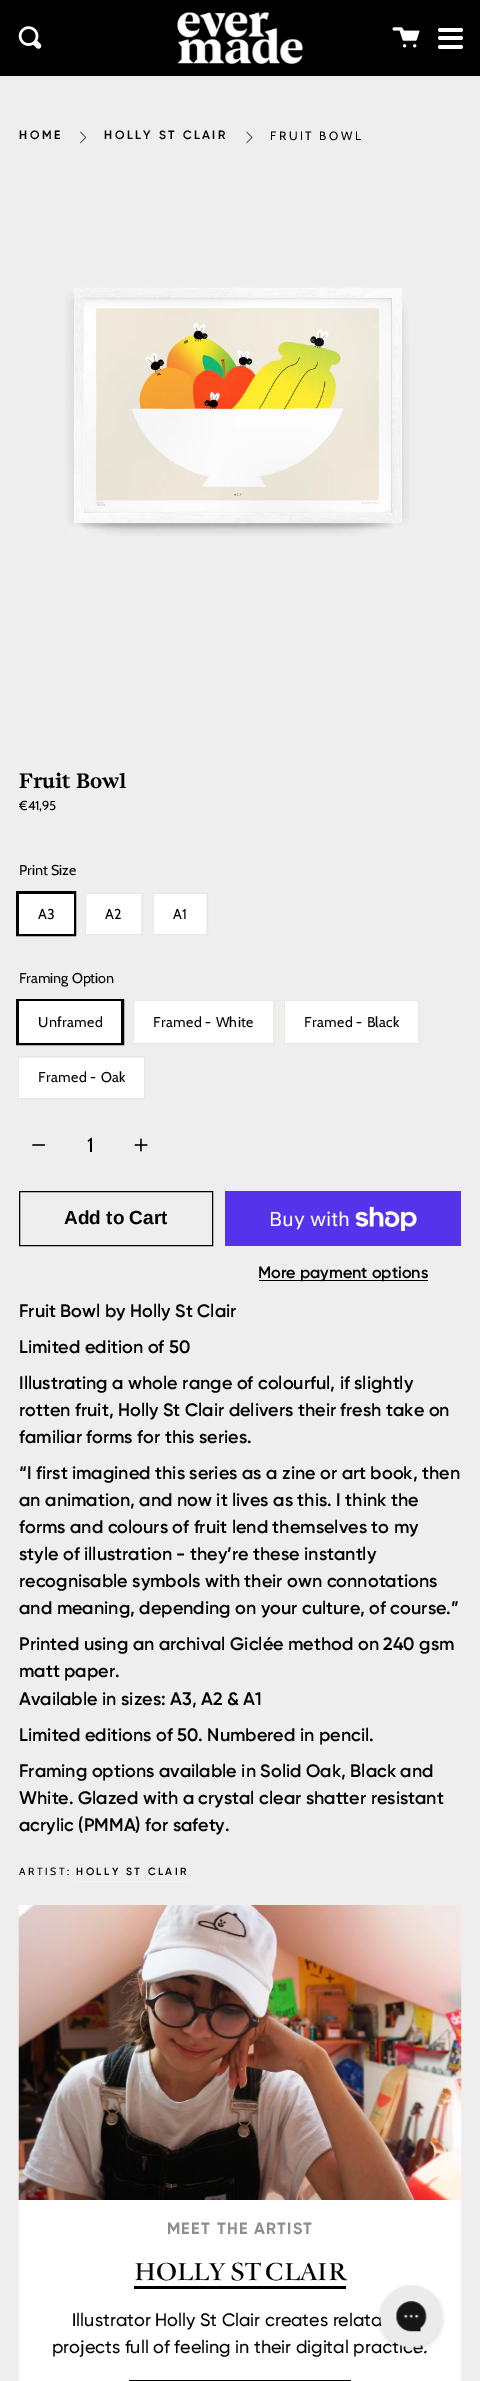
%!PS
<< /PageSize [480 2381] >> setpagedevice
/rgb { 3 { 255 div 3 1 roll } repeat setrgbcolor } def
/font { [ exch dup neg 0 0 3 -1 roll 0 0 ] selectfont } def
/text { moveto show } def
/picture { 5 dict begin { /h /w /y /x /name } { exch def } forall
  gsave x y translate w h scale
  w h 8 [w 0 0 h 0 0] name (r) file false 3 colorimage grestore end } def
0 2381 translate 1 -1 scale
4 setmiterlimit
238 238 238 rgb
0 0 480 2381 rectfill
0 0 0 rgb
0 0 480 76 rectfill
(img_01.rgb) 177 12 126 52 picture
(img_02.rgb) 18 26 24 23 picture
(img_03.rgb) 392 27 28 21 picture
255 255 255 rgb
440 28 moveto 19 0 rlineto 0 4 rlineto -19 0 rlineto -1 0 -2 -1 -2 -2 rcurveto 0 -1 1 -2 2 -2 rcurveto closepath fill
441 28 moveto 20 0 rlineto 1 0 2 1 2 2 rcurveto 0 1 -1 2 -2 2 rcurveto -20 0 rlineto closepath fill
440 36 moveto 19 0 rlineto 0 4 rlineto -19 0 rlineto -1 0 -2 -1 -2 -2 rcurveto 0 -1 1 -2 2 -2 rcurveto closepath fill
441 36 moveto 20 0 rlineto 1 0 2 1 2 2 rcurveto 0 1 -1 2 -2 2 rcurveto -20 0 rlineto closepath fill
440 45 moveto 19 0 rlineto 0 4 rlineto -19 0 rlineto -1 0 -2 -1 -2 -2 rcurveto 0 -1 1 -2 2 -2 rcurveto closepath fill
441 45 moveto 20 0 rlineto 1 0 2 1 2 2 rcurveto 0 1 -1 2 -2 2 rcurveto -20 0 rlineto closepath fill
(img_04.rgb) 80 131 6 13 picture
(img_05.rgb) 246 131 7 13 picture
(img_06.rgb) 66 287 343 249 picture
0 0 0 rgb
3 setlinewidth
17.5 892.5 57 42 rectstroke
255 255 255 rgb
19 894 55 40 rectfill
232 232 225 rgb
1 setlinewidth
85.5 893.5 57 41 rectstroke
255 255 255 rgb
86 894 55 40 rectfill
232 232 225 rgb
153.5 893.5 54 41 rectstroke
255 255 255 rgb
154 894 52 40 rectfill
0 0 0 rgb
3 setlinewidth
17.5 1000.5 105 43 rectstroke
255 255 255 rgb
19 1001 102 42 rectfill
232 232 225 rgb
1 setlinewidth
133.5 1000.5 140 43 rectstroke
255 255 255 rgb
134 1001 139 42 rectfill
232 232 225 rgb
284.5 1000.5 134 43 rectstroke
255 255 255 rgb
285 1001 133 42 rectfill
232 232 225 rgb
18.5 1056.5 126 42 rectstroke
255 255 255 rgb
19 1058 125 40 rectfill
(img_07.rgb) 32 1144 14 2 picture
(img_08.rgb) 134 1138 14 14 picture
0 0 0 rgb
19.5 1191.5 193 54 rectstroke
84 51 235 rgb
225 1191 236 55 rectfill
(img_09.rgb) 355 1206 62 25 picture
0 0 0 rgb
259 1280 169 1 rectfill
243 243 243 rgb
76 1881 113 1 rectfill
255 255 255 rgb
19 2200 442 181 rectfill
(img_10.rgb) 18 1905 444 295 picture
0 0 0 rgb
134 2286 212 3 rectfill
129 2380 222 1 rectfill
/Gilroy-SemiBold 12 font
19 139 moveto 2.5 0 (HOME) ashow
104 139 moveto 2.5 0 (HOLLY ST CLAIR) ashow
/Cabin-Regular 12 font
270 140 moveto 2.5 0 (FRUIT BOWL) ashow
/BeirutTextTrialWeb-SemiBold 20.75 font
(Fruit Bowl) 19 788 text
/Cabin-Regular 13 font
(€41,95) 19 810 text
/Cabin-Regular 14.25 font
(Print Size) 19 875 text
38 919 moveto 0.4 0 (A3) ashow
105 919 moveto 0.4 0 (A2) ashow
173 919 moveto 0.4 0 (A1) ashow
(Framing Option) 19 983 text
38 1027 moveto 0.4 0 (Unframed) ashow
153 1027 moveto 0.4 0 (Framed - White) ashow
304 1027 moveto 0.4 0 (Framed - Black) ashow
38 1082 moveto 0.4 0 (Framed - Oak) ashow
/Cabin-Regular 20 font
(1) 87 1152 text
/LiberationSans-Bold 19 font
(Add to Cart) 64 1224 text
/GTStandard-Regular 20 font
255 255 255 rgb
(Buy with) 269 1226 text
/Gilroy-SemiBold 16.25 font
0 0 0 rgb
(More payment options) 258 1278 text
/Gilroy-SemiBold 18.05 font
(Fruit Bowl by Holly St Clair) 19 1317 text
(Limited edition of 50) 19 1353 text
(Illustrating a whole range of colourful, if slightly) 19 1389 text
(rotten fruit, Holly St Clair delivers their fresh take on) 19 1416 text
(familiar forms for this series.) 19 1443 text
(“I first imagined this series as a zine or art book, then) 19 1479 text
(an animation, and now it lives as this. I think the) 19 1506 text
(forms and colours of fruit lend themselves to my) 19 1533 text
(style of illustration - they’re these instantly) 19 1560 text
(recognisable symbols with their own connotations) 19 1587 text
(and meaning, depending on your culture, of course.”) 19 1614 text
(Printed using an archival Giclée method on 240 gsm) 19 1650 text
(matt paper.) 19 1677 text
(Available in sizes: A3, A2 & A1) 19 1705 text
(Limited editions of 50. Numbered in pencil.) 19 1741 text
(Framing options available in Solid Oak, Black and) 19 1777 text
(White. Glazed with a crystal clear shatter resistant) 19 1804 text
(acrylic \(PMMA\) for safety.) 19 1831 text
/Cabin-Regular 10.5 font
19 1875 moveto 2.5 0 (ARTIST:) ashow
/Gilroy-SemiBold 10.5 font
76 1875 moveto 2.5 0 (HOLLY ST CLAIR) ashow
/Gilroy-Bold 16.25 font
143 143 143 rgb
167 2234 moveto 1.25 0 (MEET THE ARTIST) ashow
/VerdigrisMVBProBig-Bold 25 font
0 0 0 rgb
(HOLLY ST CLAIR) 134 2280 text
/Gilroy-Medium 18.05 font
(Illustrator Holly St Clair creates relata) 72 2326 text
(projects full of feeling in their digital practice.) 52 2353 text
(img_11.rgb) 377 2285 68 67 picture
showpage
